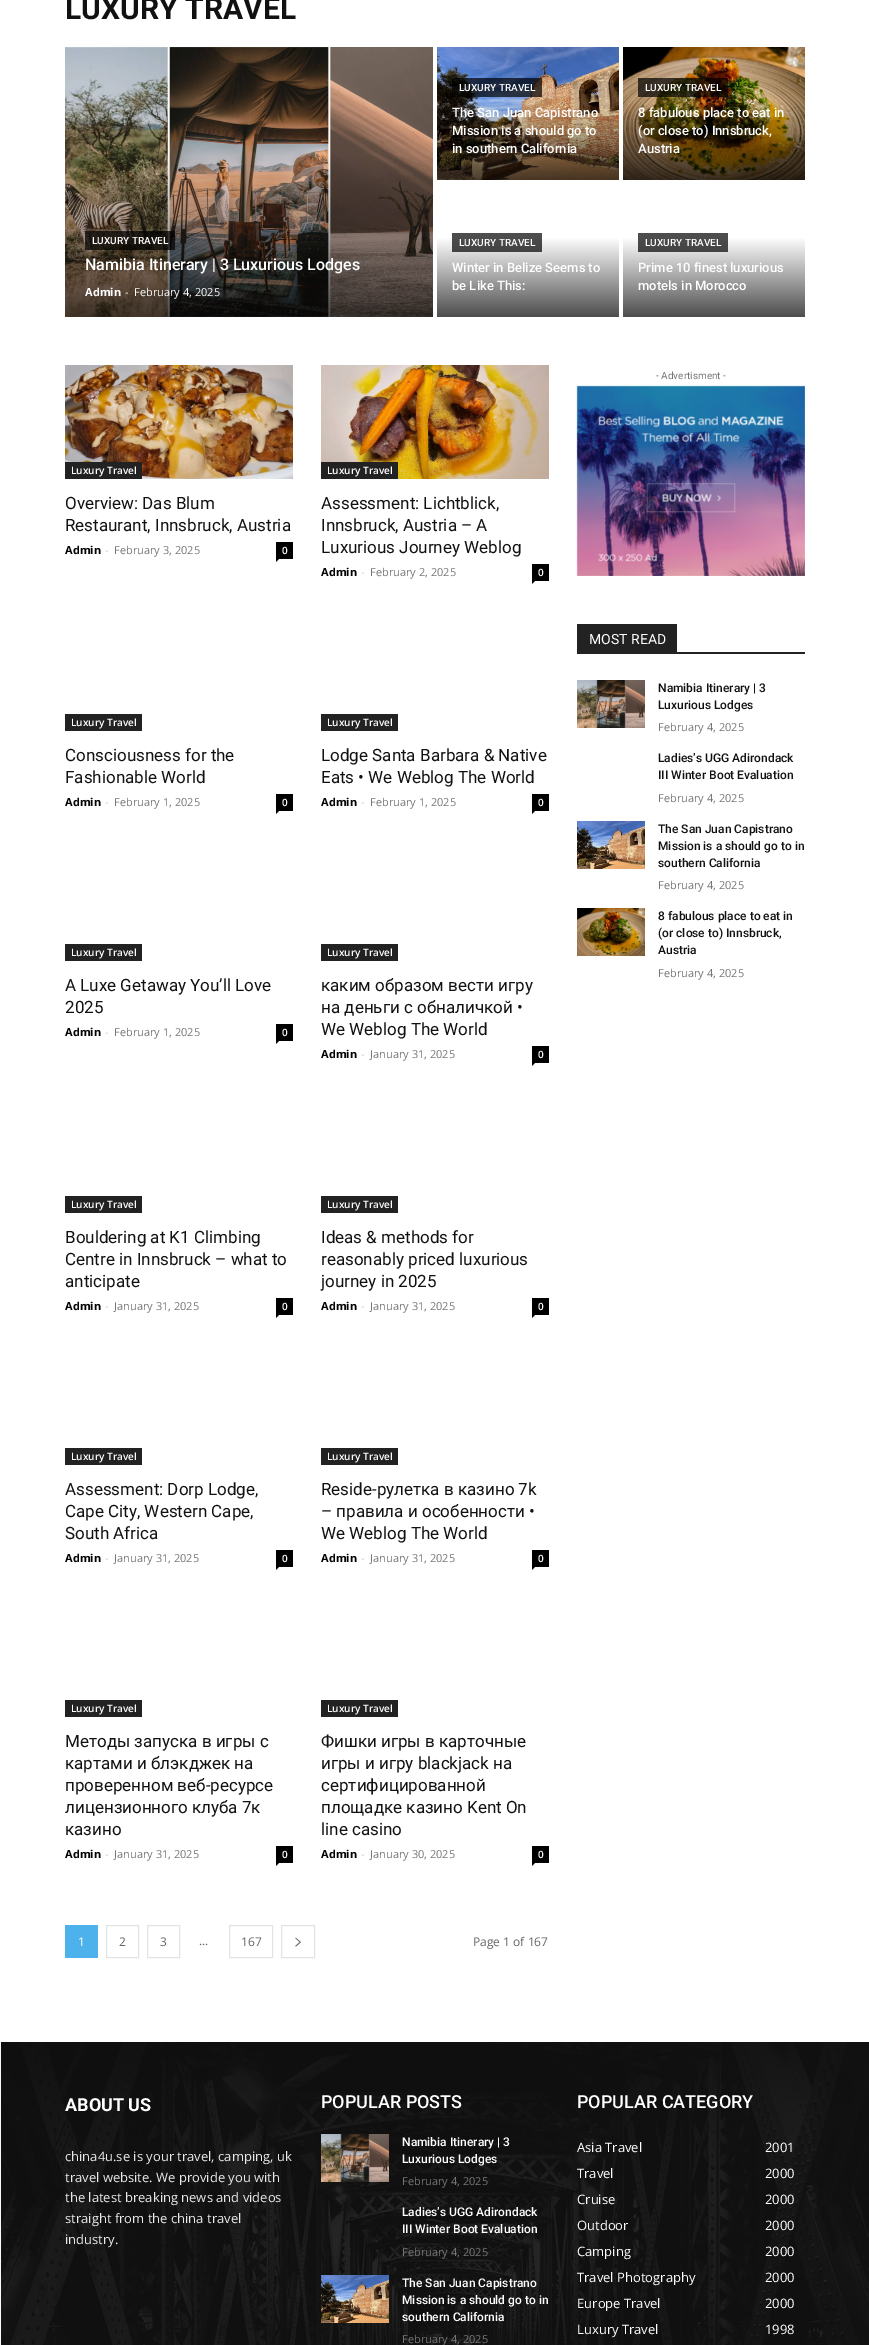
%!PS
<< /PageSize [869 2345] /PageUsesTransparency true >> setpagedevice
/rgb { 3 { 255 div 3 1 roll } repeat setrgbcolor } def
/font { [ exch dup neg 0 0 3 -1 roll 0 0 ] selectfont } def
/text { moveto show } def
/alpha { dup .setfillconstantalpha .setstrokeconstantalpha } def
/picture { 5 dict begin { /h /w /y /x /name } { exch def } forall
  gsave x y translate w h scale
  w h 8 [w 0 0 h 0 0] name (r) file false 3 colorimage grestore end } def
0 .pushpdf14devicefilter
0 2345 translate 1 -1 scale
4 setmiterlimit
255 255 255 rgb
0 0 869 2345 rectfill
(img_01.rgb) 65 47 368 270 picture
0.7 alpha
0 0 0 rgb
85 231 90 19 rectfill
1 alpha
(img_02.rgb) 437 47 182 133 picture
0.7 alpha
452 78 90 19 rectfill
1 alpha
(img_03.rgb) 623 47 182 133 picture
0.7 alpha
638 78 90 19 rectfill
1 alpha
gsave 437 238 moveto 182 0 rlineto 0 79 rlineto -182 0 rlineto closepath clip newpath
<< /ShadingType 2 /ColorSpace /DeviceRGB /Coords [528 317 528 184] /Extend [true true] /Function << /FunctionType 3 /Domain [0 1] /Functions [<< /FunctionType 2 /Domain [0 1] /C0 [0.302 0.302 0.302] /C1 [1 1 1] /N 1 >> << /FunctionType 2 /Domain [0 1] /C0 [1 1 1] /C1 [1 1 1] /N 1 >>] /Bounds [0.6] /Encode [0 1 0 1] >> >> shfill grestore
gsave 452 233 moveto 90 0 rlineto 0 19 rlineto -90 0 rlineto closepath clip newpath
<< /ShadingType 2 /ColorSpace /DeviceRGB /Coords [528 317 528 184] /Extend [true true] /Function << /FunctionType 3 /Domain [0 1] /Functions [<< /FunctionType 2 /Domain [0 1] /C0 [0.09 0.09 0.09] /C1 [0.302 0.302 0.302] /N 1 >> << /FunctionType 2 /Domain [0 1] /C0 [0.302 0.302 0.302] /C1 [0.302 0.302 0.302] /N 1 >>] /Bounds [0.6] /Encode [0 1 0 1] >> >> shfill grestore
gsave 623 238 moveto 182 0 rlineto 0 79 rlineto -182 0 rlineto closepath clip newpath
<< /ShadingType 2 /ColorSpace /DeviceRGB /Coords [714 317 714 184] /Extend [true true] /Function << /FunctionType 3 /Domain [0 1] /Functions [<< /FunctionType 2 /Domain [0 1] /C0 [0.302 0.302 0.302] /C1 [1 1 1] /N 1 >> << /FunctionType 2 /Domain [0 1] /C0 [1 1 1] /C1 [1 1 1] /N 1 >>] /Bounds [0.6] /Encode [0 1 0 1] >> >> shfill grestore
gsave 638 233 moveto 90 0 rlineto 0 19 rlineto -90 0 rlineto closepath clip newpath
<< /ShadingType 2 /ColorSpace /DeviceRGB /Coords [714 317 714 184] /Extend [true true] /Function << /FunctionType 3 /Domain [0 1] /Functions [<< /FunctionType 2 /Domain [0 1] /C0 [0.09 0.09 0.09] /C1 [0.302 0.302 0.302] /N 1 >> << /FunctionType 2 /Domain [0 1] /C0 [0.302 0.302 0.302] /C1 [0.302 0.302 0.302] /N 1 >>] /Bounds [0.6] /Encode [0 1 0 1] >> >> shfill grestore
(img_04.rgb) 65 365 228 114 picture
34 34 34 rgb
65 462 77 17 rectfill
0 0 0 rgb
276 542 17 17 rectfill
276 559 moveto 3 0 rlineto -3 3 rlineto closepath fill
(img_05.rgb) 321 365 228 114 picture
34 34 34 rgb
321 462 77 17 rectfill
0 0 0 rgb
532 564 17 17 rectfill
532 581 moveto 3 0 rlineto -3 3 rlineto closepath fill
34 34 34 rgb
65 714 77 17 rectfill
0 0 0 rgb
276 794 17 17 rectfill
276 811 moveto 3 0 rlineto -3 3 rlineto closepath fill
34 34 34 rgb
321 714 77 17 rectfill
0 0 0 rgb
532 794 17 17 rectfill
532 811 moveto 3 0 rlineto -3 3 rlineto closepath fill
34 34 34 rgb
65 944 77 17 rectfill
0 0 0 rgb
276 1024 17 17 rectfill
276 1041 moveto 3 0 rlineto -3 3 rlineto closepath fill
34 34 34 rgb
321 944 77 17 rectfill
0 0 0 rgb
532 1046 17 17 rectfill
532 1063 moveto 3 0 rlineto -3 3 rlineto closepath fill
34 34 34 rgb
65 1196 77 17 rectfill
0 0 0 rgb
276 1298 17 17 rectfill
276 1315 moveto 3 0 rlineto -3 3 rlineto closepath fill
34 34 34 rgb
321 1196 77 17 rectfill
0 0 0 rgb
532 1298 17 17 rectfill
532 1315 moveto 3 0 rlineto -3 3 rlineto closepath fill
34 34 34 rgb
65 1448 77 17 rectfill
0 0 0 rgb
276 1550 17 17 rectfill
276 1567 moveto 3 0 rlineto -3 3 rlineto closepath fill
34 34 34 rgb
321 1448 77 17 rectfill
0 0 0 rgb
532 1550 17 17 rectfill
532 1567 moveto 3 0 rlineto -3 3 rlineto closepath fill
34 34 34 rgb
65 1700 77 17 rectfill
0 0 0 rgb
276 1846 17 17 rectfill
276 1863 moveto 3 0 rlineto -3 3 rlineto closepath fill
34 34 34 rgb
321 1700 77 17 rectfill
0 0 0 rgb
532 1846 17 17 rectfill
532 1863 moveto 3 0 rlineto -3 3 rlineto closepath fill
77 178 236 rgb
65 1925 33 33 rectfill
227 227 227 rgb
106.5 1925.5 32 32 rectstroke
147.5 1925.5 32 32 rectstroke
229.5 1925.5 43 32 rectstroke
281.5 1925.5 33 32 rectstroke
(img_06.rgb) 295 1937 6 10 picture
(img_07.rgb) 576 385 229 191 picture
34 34 34 rgb
577 652 228 2 rectfill
577 624 100 28 rectfill
(img_08.rgb) 577 680 68 48 picture
(img_09.rgb) 577 821 68 48 picture
(img_10.rgb) 577 908 68 48 picture
17 17 17 rgb
1 2042 868 303 rectfill
(img_11.rgb) 0 2042 869 303 picture
(img_08.rgb) 321 2134 68 48 picture
(img_12.rgb) 321 2275 68 48 picture
/Roboto-Bold 30 font
(LUXURY TRAVEL) 65 19 text
/Roboto-Medium 10 font
255 255 255 rgb
(LUXURY TRAVEL) 92 244 text
/Roboto-Medium 16 font
(Namibia Itinerary | 3 Luxurious Lodges) 85 270 text
/OpenSans-Bold 11 font
(Admin) 85 296 text
/OpenSans-Regular 11 font
(-) 125 296 text
(February 4, 2025) 134 296 text
/Roboto-Medium 10 font
(LUXURY TRAVEL) 459 91 text
/Roboto-Medium 13 font
(The San Juan Capistrano) 452 117 text
(Mission is a should go to) 452 135 text
(in southern California) 452 153 text
/Roboto-Medium 10 font
(LUXURY TRAVEL) 645 91 text
/Roboto-Medium 13 font
(8 fabulous place to eat in) 638 117 text
(\(or close to\) Innsbruck,) 638 135 text
(Austria) 638 153 text
/Roboto-Medium 10 font
(LUXURY TRAVEL) 459 246 text
/Roboto-Medium 13 font
(Winter in Belize Seems to) 452 272 text
(be Like This:) 452 290 text
/Roboto-Medium 10 font
(LUXURY TRAVEL) 645 246 text
/Roboto-Medium 13 font
(Prime 10 finest luxurious) 638 272 text
(motels in Morocco) 638 290 text
/OpenSans-SemiBold 10 font
(Luxury Travel) 71 474 text
/Roboto-Regular 17 font
17 17 17 rgb
(Overview: Das Blum) 65 509 text
(Restaurant, Innsbruck, Austria) 65 531 text
/OpenSans-Bold 11 font
0 0 0 rgb
(Admin) 65 554 text
/OpenSans-Regular 11 font
204 204 204 rgb
(-) 105 554 text
118 118 118 rgb
(February 3, 2025) 114 554 text
/OpenSans-SemiBold 10 font
255 255 255 rgb
(0) 282 554 text
(Luxury Travel) 327 474 text
/Roboto-Regular 17 font
17 17 17 rgb
(Assessment: Lichtblick,) 321 509 text
(Innsbruck, Austria – A) 321 531 text
(Luxurious Journey Weblog) 321 553 text
/OpenSans-Bold 11 font
0 0 0 rgb
(Admin) 321 576 text
/OpenSans-Regular 11 font
204 204 204 rgb
(-) 361 576 text
118 118 118 rgb
(February 2, 2025) 370 576 text
/OpenSans-SemiBold 10 font
255 255 255 rgb
(0) 538 576 text
(Luxury Travel) 71 726 text
/Roboto-Regular 17 font
17 17 17 rgb
(Consciousness for the) 65 761 text
(Fashionable World) 65 783 text
/OpenSans-Bold 11 font
0 0 0 rgb
(Admin) 65 806 text
/OpenSans-Regular 11 font
204 204 204 rgb
(-) 105 806 text
118 118 118 rgb
(February 1, 2025) 114 806 text
/OpenSans-SemiBold 10 font
255 255 255 rgb
(0) 282 806 text
(Luxury Travel) 327 726 text
/Roboto-Regular 17 font
17 17 17 rgb
(Lodge Santa Barbara & Native) 321 761 text
(Eats • We Weblog The World) 321 783 text
/OpenSans-Bold 11 font
0 0 0 rgb
(Admin) 321 806 text
/OpenSans-Regular 11 font
204 204 204 rgb
(-) 361 806 text
118 118 118 rgb
(February 1, 2025) 370 806 text
/OpenSans-SemiBold 10 font
255 255 255 rgb
(0) 538 806 text
(Luxury Travel) 71 956 text
/Roboto-Regular 17 font
17 17 17 rgb
(A Luxe Getaway You’ll Love) 65 991 text
(2025) 65 1013 text
/OpenSans-Bold 11 font
0 0 0 rgb
(Admin) 65 1036 text
/OpenSans-Regular 11 font
204 204 204 rgb
(-) 105 1036 text
118 118 118 rgb
(February 1, 2025) 114 1036 text
/OpenSans-SemiBold 10 font
255 255 255 rgb
(0) 282 1036 text
(Luxury Travel) 327 956 text
/Roboto-Regular 17 font
17 17 17 rgb
(каким образом вести игру) 321 991 text
(на деньги с обналичкой •) 321 1013 text
(We Weblog The World) 321 1035 text
/OpenSans-Bold 11 font
0 0 0 rgb
(Admin) 321 1058 text
/OpenSans-Regular 11 font
204 204 204 rgb
(-) 361 1058 text
118 118 118 rgb
(January 31, 2025) 370 1058 text
/OpenSans-SemiBold 10 font
255 255 255 rgb
(0) 538 1058 text
(Luxury Travel) 71 1208 text
/Roboto-Regular 17 font
17 17 17 rgb
(Bouldering at K1 Climbing) 65 1243 text
(Centre in Innsbruck – what to) 65 1265 text
(anticipate) 65 1287 text
/OpenSans-Bold 11 font
0 0 0 rgb
(Admin) 65 1310 text
/OpenSans-Regular 11 font
204 204 204 rgb
(-) 105 1310 text
118 118 118 rgb
(January 31, 2025) 114 1310 text
/OpenSans-SemiBold 10 font
255 255 255 rgb
(0) 282 1310 text
(Luxury Travel) 327 1208 text
/Roboto-Regular 17 font
17 17 17 rgb
(Ideas & methods for) 321 1243 text
(reasonably priced luxurious) 321 1265 text
(journey in 2025) 321 1287 text
/OpenSans-Bold 11 font
0 0 0 rgb
(Admin) 321 1310 text
/OpenSans-Regular 11 font
204 204 204 rgb
(-) 361 1310 text
118 118 118 rgb
(January 31, 2025) 370 1310 text
/OpenSans-SemiBold 10 font
255 255 255 rgb
(0) 538 1310 text
(Luxury Travel) 71 1460 text
/Roboto-Regular 17 font
17 17 17 rgb
(Assessment: Dorp Lodge,) 65 1495 text
(Cape City, Western Cape,) 65 1517 text
(South Africa) 65 1539 text
/OpenSans-Bold 11 font
0 0 0 rgb
(Admin) 65 1562 text
/OpenSans-Regular 11 font
204 204 204 rgb
(-) 105 1562 text
118 118 118 rgb
(January 31, 2025) 114 1562 text
/OpenSans-SemiBold 10 font
255 255 255 rgb
(0) 282 1562 text
(Luxury Travel) 327 1460 text
/Roboto-Regular 17 font
17 17 17 rgb
(Reside-рулетка в казино 7k) 321 1495 text
(– правила и особенности •) 321 1517 text
(We Weblog The World) 321 1539 text
/OpenSans-Bold 11 font
0 0 0 rgb
(Admin) 321 1562 text
/OpenSans-Regular 11 font
204 204 204 rgb
(-) 361 1562 text
118 118 118 rgb
(January 31, 2025) 370 1562 text
/OpenSans-SemiBold 10 font
255 255 255 rgb
(0) 538 1562 text
(Luxury Travel) 71 1712 text
/Roboto-Regular 17 font
17 17 17 rgb
(Методы запуска в игры с) 65 1747 text
(картами и блэкджек на) 65 1769 text
(проверенном веб-ресурсе) 65 1791 text
(лицензионного клуба 7к) 65 1813 text
(казино) 65 1835 text
/OpenSans-Bold 11 font
0 0 0 rgb
(Admin) 65 1858 text
/OpenSans-Regular 11 font
204 204 204 rgb
(-) 105 1858 text
118 118 118 rgb
(January 31, 2025) 114 1858 text
/OpenSans-SemiBold 10 font
255 255 255 rgb
(0) 282 1858 text
(Luxury Travel) 327 1712 text
/Roboto-Regular 17 font
17 17 17 rgb
(Фишки игры в карточные) 321 1747 text
(игры и игру blackjack на) 321 1769 text
(сертифицированной) 321 1791 text
(площадке казино Kent On) 321 1813 text
(line casino) 321 1835 text
/OpenSans-Bold 11 font
0 0 0 rgb
(Admin) 321 1858 text
/OpenSans-Regular 11 font
204 204 204 rgb
(-) 361 1858 text
118 118 118 rgb
(January 30, 2025) 370 1858 text
/OpenSans-SemiBold 10 font
255 255 255 rgb
(0) 538 1858 text
/OpenSans-Regular 12 font
(1) 78 1946 text
102 102 102 rgb
(2) 119 1946 text
(3) 160 1946 text
(...) 199 1945 text
(167) 241 1946 text
(Page 1 of 167) 473 1946 text
/Roboto-Regular 10 font
118 118 118 rgb
(- Advertisment -) 656 379 text
/Roboto-Regular 14 font
255 255 255 rgb
(MOST READ) 589 644 text
/Roboto-Medium 12 font
17 17 17 rgb
(Namibia Itinerary | 3) 658 692 text
(Luxurious Lodges) 658 709 text
/OpenSans-Regular 11 font
118 118 118 rgb
(February 4, 2025) 658 731 text
/Roboto-Medium 12 font
17 17 17 rgb
(Ladies’s UGG Adirondack) 658 762 text
(III Winter Boot Evaluation) 658 779 text
/OpenSans-Regular 11 font
118 118 118 rgb
(February 4, 2025) 658 802 text
/Roboto-Medium 12 font
17 17 17 rgb
(The San Juan Capistrano) 658 833 text
(Mission is a should go to in) 658 850 text
(southern California) 658 867 text
/OpenSans-Regular 11 font
118 118 118 rgb
(February 4, 2025) 658 889 text
/Roboto-Medium 12 font
17 17 17 rgb
(8 fabulous place to eat in) 658 920 text
(\(or close to\) Innsbruck,) 658 937 text
(Austria) 658 954 text
/OpenSans-Regular 11 font
118 118 118 rgb
(February 4, 2025) 658 977 text
/Roboto-Bold 18 font
255 255 255 rgb
(ABOUT US) 65 2111 text
/OpenSans-Regular 13 font
234 234 234 rgb
(china4u.se is your travel, camping, uk) 65 2161 text
(travel website. We provide you with) 65 2182 text
(the latest breaking news and videos) 65 2202 text
(straight from the china travel) 65 2223 text
(industry.) 65 2244 text
/Roboto-Medium 18 font
255 255 255 rgb
(POPULAR POSTS) 321 2108 text
/Roboto-Medium 12 font
(Namibia Itinerary | 3) 402 2146 text
(Luxurious Lodges) 402 2163 text
/OpenSans-Regular 11 font
118 118 118 rgb
(February 4, 2025) 402 2185 text
/Roboto-Medium 12 font
255 255 255 rgb
(Ladies’s UGG Adirondack) 402 2216 text
(III Winter Boot Evaluation) 402 2233 text
/OpenSans-Regular 11 font
118 118 118 rgb
(February 4, 2025) 402 2256 text
/Roboto-Medium 12 font
255 255 255 rgb
(The San Juan Capistrano) 402 2287 text
(Mission is a should go to in) 402 2304 text
(southern California) 402 2321 text
/OpenSans-Regular 11 font
118 118 118 rgb
(February 4, 2025) 402 2343 text
/Roboto-Medium 18 font
255 255 255 rgb
(POPULAR CATEGORY) 577 2108 text
/OpenSans-Regular 13 font
(Asia Travel) 577 2152 text
(2001) 765 2152 text
(Travel) 577 2178 text
(2000) 765 2178 text
(Cruise) 577 2204 text
(2000) 765 2204 text
(Outdoor) 577 2230 text
(2000) 765 2230 text
(Camping) 577 2256 text
(2000) 765 2256 text
(Travel Photography) 577 2282 text
(2000) 765 2282 text
(Europe Travel) 577 2308 text
(2000) 765 2308 text
(Luxury Travel) 577 2334 text
(1998) 765 2334 text
.poppdf14devicefilter showpage
